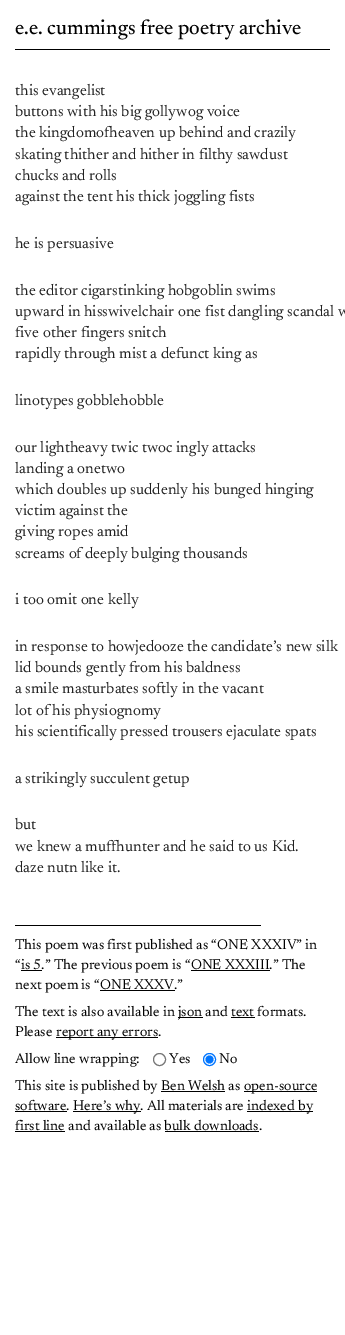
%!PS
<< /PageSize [345 1335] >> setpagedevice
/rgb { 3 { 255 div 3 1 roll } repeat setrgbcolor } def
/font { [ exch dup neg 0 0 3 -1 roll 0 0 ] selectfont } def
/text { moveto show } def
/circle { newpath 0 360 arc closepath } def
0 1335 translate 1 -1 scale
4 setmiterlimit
255 255 255 rgb
0 0 345 1335 rectfill
0 0 0 rgb
15 49 315 1 rectfill
15 925 246 1 rectfill
21 970 21 1 rectfill
191 970 79 1 rectfill
100 990 75 1 rectfill
178 1017 25 1 rectfill
231 1017 24 1 rectfill
56 1037 102 1 rectfill
118 118 118 rgb
159.5 1059.5 6 circle stroke
0 117 255 rgb
209.5 1059.5 6 circle stroke
209.5 1059.5 4 circle fill
0 0 0 rgb
244 1091 73 1 rectfill
161 1091 64 1 rectfill
15 1111 52 1 rectfill
73 1111 68 1 rectfill
247 1111 66 1 rectfill
15 1131 50 1 rectfill
165 1131 94 1 rectfill
/Newsreader-Medium 20.6 font
(e.e. cummings free poetry archive) 15 34 text
/Newsreader-Regular 15.7 font
34 34 34 rgb
(this evangelist) 15 95 text
(buttons with his big gollywog voice) 15 116 text
(the kingdomofheaven up behind and crazily) 15 137 text
(skating thither and hither in filthy sawdust) 15 159 text
(chucks and rolls) 15 180 text
(against the tent his thick joggling fists) 15 201 text
(he is persuasive) 15 248 text
(the editor cigarstinking hobgoblin swims) 15 295 text
(upward in hisswivelchair one fist dangling scandal w) 15 316 text
(five other fingers snitch) 15 337 text
(rapidly through mist a defunct king as) 15 358 text
(linotypes gobblehobble) 15 405 text
(our lightheavy twic twoc ingly attacks) 15 452 text
(landing a onetwo) 15 473 text
(which doubles up suddenly his bunged hinging) 15 494 text
(victim against the) 15 515 text
(giving ropes amid) 15 536 text
(screams of deeply bulging thousands) 15 558 text
(i too omit one kelly) 15 604 text
(in response to howjedooze the candidate’s new silk) 15 651 text
(lid bounds gently from his baldness) 15 672 text
(a smile masturbates softly in the vacant) 15 693 text
(lot of his physiognomy) 15 715 text
(his scientifically pressed trousers ejaculate spats) 15 736 text
(a strikingly succulent getup) 15 783 text
(but) 15 829 text
(we knew a muffhunter and he said to us Kid.) 15 851 text
(daze nutn like it.) 15 872 text
/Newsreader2-Regular 14.3 font
0 0 0 rgb
(This poem was first published as “ONE XXXIV” in) 15 949 text
(“is 5.” The previous poem is “ONE XXXIII.” The) 15 969 text
(next poem is “ONE XXXV.”) 15 989 text
(The text is also available in) 15 1016 text
(json and text formats.) 178 1016 text
(Please) 15 1036 text
(report any errors.) 56 1036 text
(Allow line wrapping:) 15 1063 text
(Yes) 169 1063 text
(No) 219 1063 text
(This site is published by Ben Welsh as) 15 1090 text
(open-source) 244 1090 text
(software.) 15 1110 text
(Here’s why. All materials are) 73 1110 text
(indexed by) 247 1110 text
(first line and available as bulk downloads.) 15 1130 text
showpage
